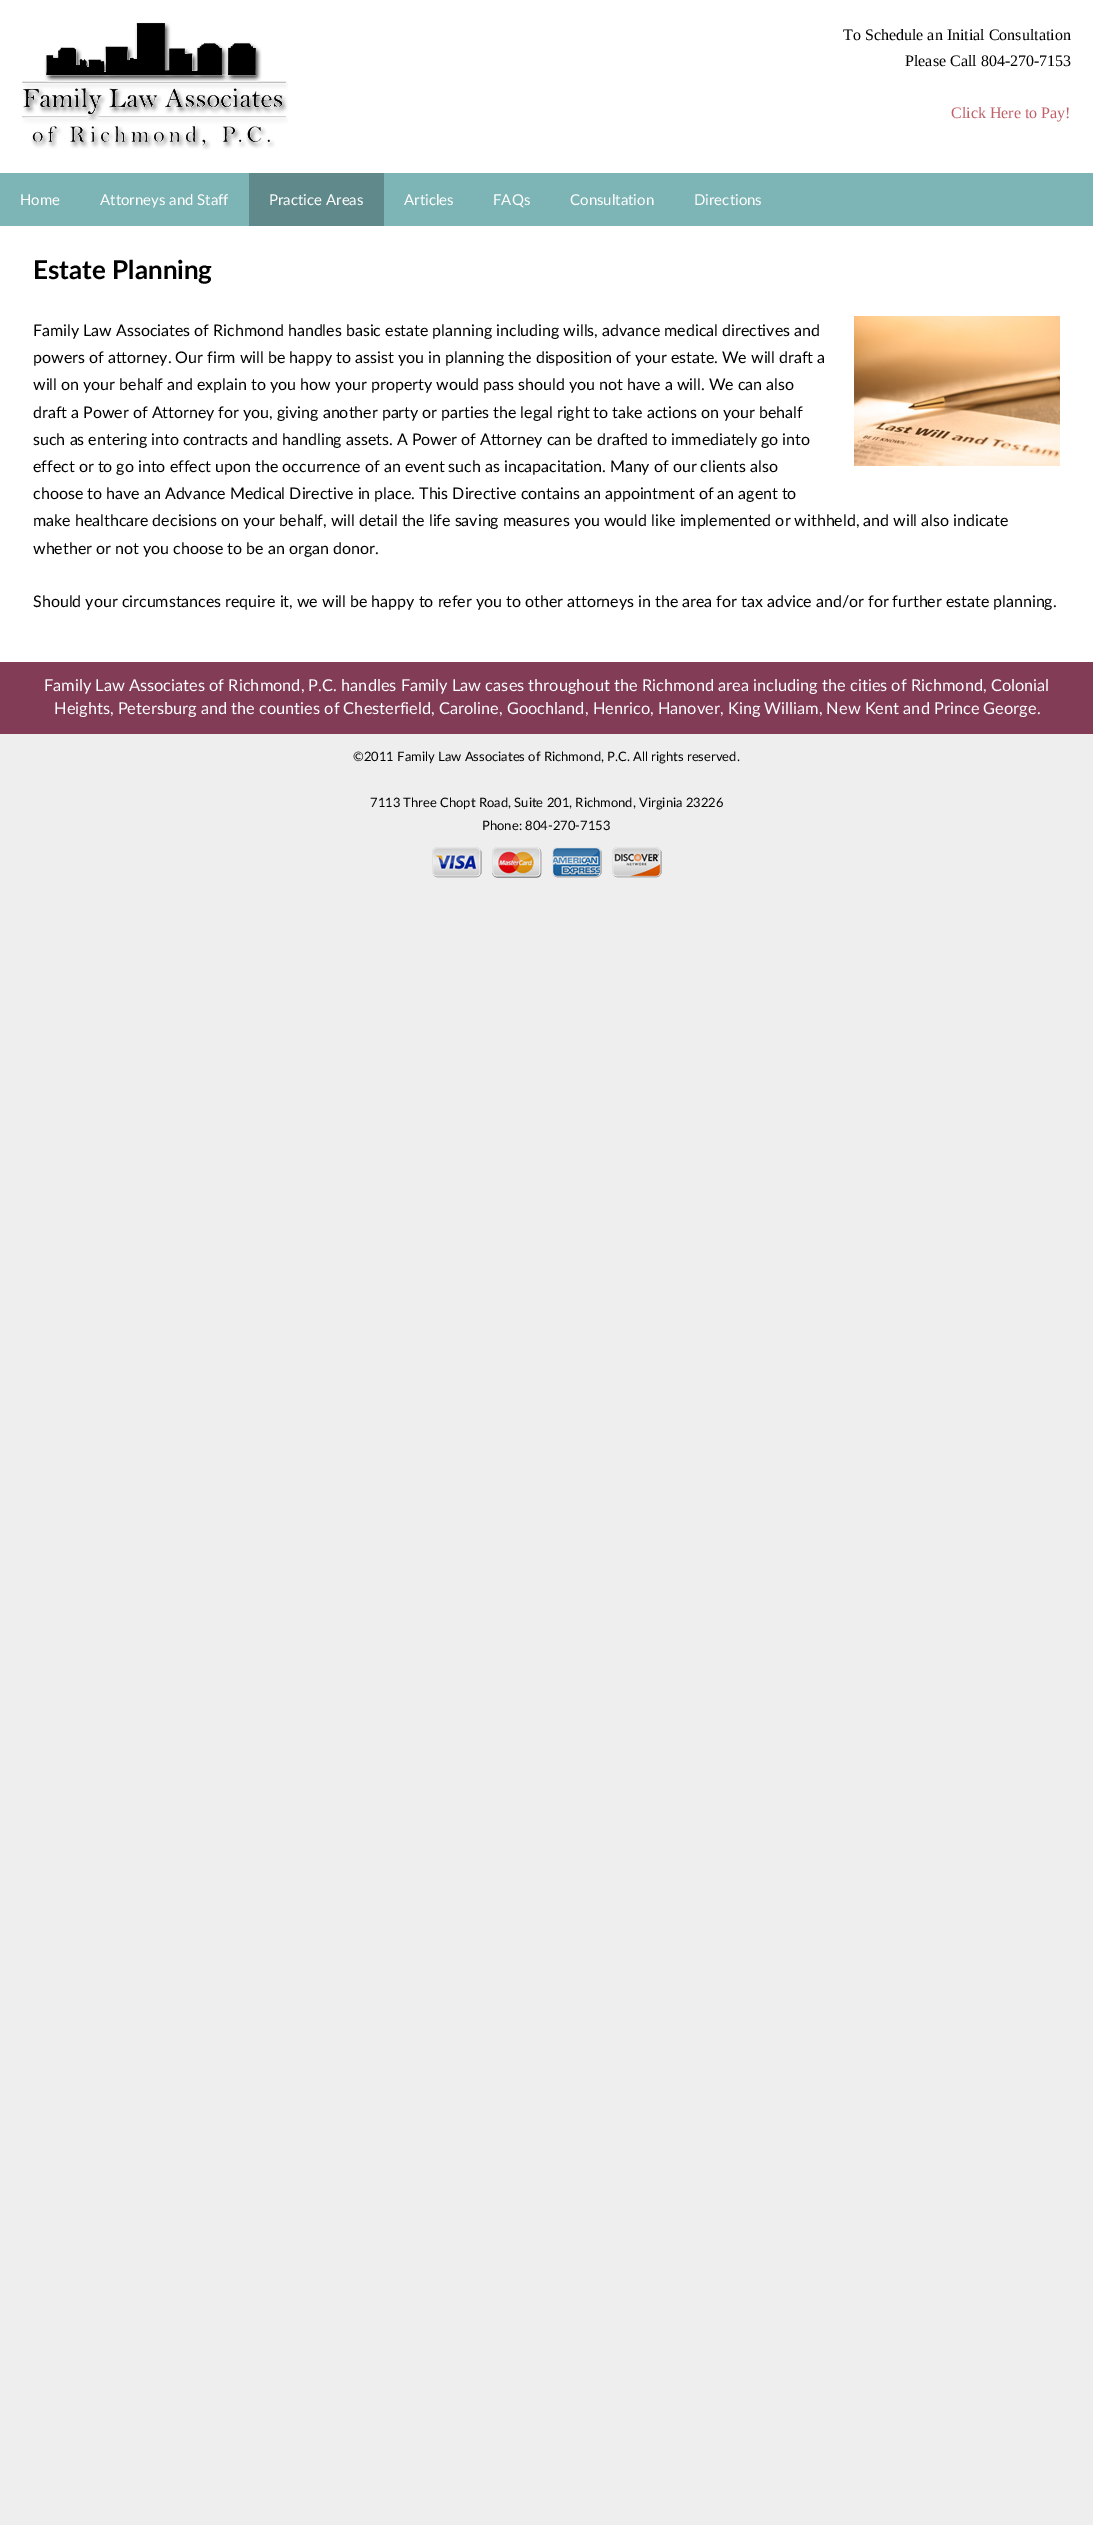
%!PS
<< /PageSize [1093 2525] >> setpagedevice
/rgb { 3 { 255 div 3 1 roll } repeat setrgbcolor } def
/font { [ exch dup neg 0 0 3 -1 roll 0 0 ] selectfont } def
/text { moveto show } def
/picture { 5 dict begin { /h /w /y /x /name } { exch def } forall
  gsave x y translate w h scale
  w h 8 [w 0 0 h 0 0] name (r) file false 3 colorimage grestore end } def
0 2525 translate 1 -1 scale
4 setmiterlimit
238 238 238 rgb
0 0 1093 2525 rectfill
255 255 255 rgb
0 0 1093 662 rectfill
(img_01.rgb) 22 22 266 128 picture
125 180 181 rgb
0 173 1093 53 rectfill
95 137 138 rgb
249 173 135 53 rectfill
(img_02.rgb) 854 316 206 150 picture
130 60 86 rgb
0 662 1093 72 rectfill
(img_03.rgb) 432 847 50 31 picture
(img_04.rgb) 492 847 50 31 picture
(img_05.rgb) 552 847 50 31 picture
(img_06.rgb) 612 847 50 31 picture
/LiberationSerif-Regular 16 font
0 0 0 rgb
(To Schedule an Initial Consultation) 843 40 text
(Please Call 804-270-7153) 905 66 text
192 95 102 rgb
(Click Here to Pay!) 951 118 text
/Lato-Regular 15 font
255 255 255 rgb
(Home) 20 205 text
(Attorneys and Staff) 100 205 text
(Practice Areas) 269 205 text
(Articles) 404 205 text
(FAQs) 493 205 text
(Consultation) 570 205 text
(Directions) 694 205 text
/Lato-Bold 26 font
0 0 0 rgb
(Estate Planning) 33 279 text
/Lato-Regular 16 font
(Family Law Associates of Richmond handles basic estate planning including wills, advance medical directives and) 33 336 text
(powers of attorney. Our firm will be happy to assist you in planning the disposition of your estate. We will draft a) 33 363 text
(will on your behalf and explain to you how your property would pass should you not have a will. We can also) 33 390 text
(draft a Power of Attorney for you, giving another party or parties the legal right to take actions on your behalf) 33 418 text
(such as entering into contracts and handling assets. A Power of Attorney can be drafted to immediately go into) 33 445 text
(effect or to go into effect upon the occurrence of an event such as incapacitation. Many of our clients also) 33 472 text
(choose to have an Advance Medical Directive in place. This Directive contains an appointment of an agent to) 33 499 text
(make healthcare decisions on your behalf, will detail the life saving measures you would like implemented or withheld, and will also indicate) 33 526 text
(whether or not you choose to be an organ donor.) 33 554 text
(Should your circumstances require it, we will be happy to refer you to other attorneys in the area for tax advice and/or for further estate planning.) 33 607 text
/Lato-Regular 16.38 font
255 255 255 rgb
(Family Law Associates of Richmond, P.C. handles Family Law cases throughout the Richmond area including the cities of Richmond, Colonial) 44 691 text
(Heights, Petersburg and the counties of Chesterfield, Caroline, Goochland, Henrico, Hanover, King William, New Kent and Prince George.) 54 714 text
/Lato-Regular 13 font
0 0 0 rgb
(©2011 Family Law Associates of Richmond, P.C. All rights reserved.) 353 761 text
(7113 Three Chopt Road, Suite 201, Richmond, Virginia 23226) 370 807 text
(Phone: 804-270-7153) 482 830 text
showpage
